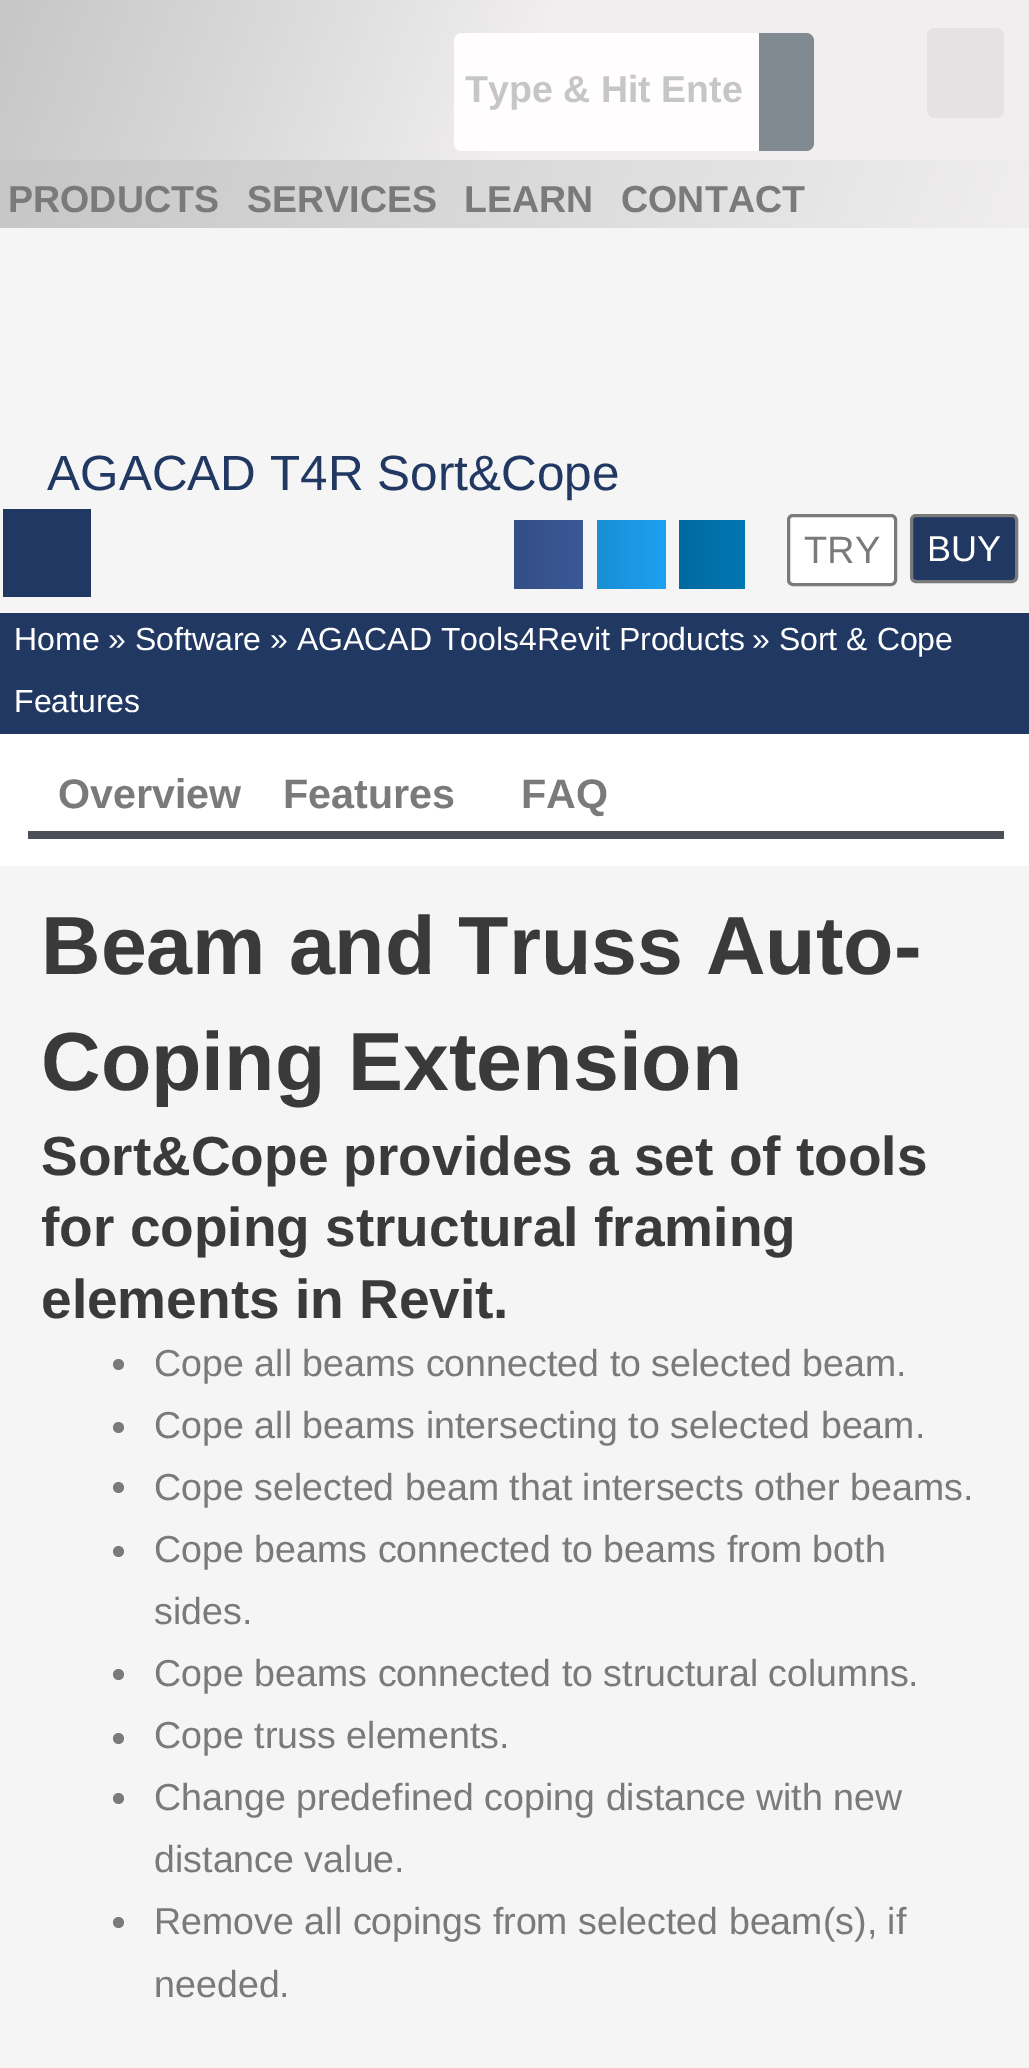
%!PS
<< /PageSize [1029 2068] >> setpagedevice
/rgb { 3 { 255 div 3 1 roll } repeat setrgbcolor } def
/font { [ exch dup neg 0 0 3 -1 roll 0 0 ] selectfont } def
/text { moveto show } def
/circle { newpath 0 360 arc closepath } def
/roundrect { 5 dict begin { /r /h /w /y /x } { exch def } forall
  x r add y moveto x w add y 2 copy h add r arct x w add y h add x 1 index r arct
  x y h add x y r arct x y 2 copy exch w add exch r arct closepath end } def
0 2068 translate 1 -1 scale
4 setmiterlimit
245 245 245 rgb
0 0 1029 2068 rectfill
gsave 0 0 moveto 1029 0 rlineto 0 160 rlineto -1029 0 rlineto closepath clip newpath
<< /ShadingType 2 /ColorSpace /DeviceRGB /Coords [24 -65 1008 293] /Extend [true true] /Function << /FunctionType 3 /Domain [0 1] /Functions [<< /FunctionType 2 /Domain [0 1] /C0 [0.776 0.776 0.776] /C1 [0.941 0.933 0.933] /N 1 >> << /FunctionType 2 /Domain [0 1] /C0 [0.941 0.933 0.933] /C1 [0.941 0.933 0.933] /N 1 >>] /Bounds [0.5] /Encode [0 1 0 1] >> >> shfill grestore
255 253 253 rgb
462 33 moveto 297 0 rlineto 0 118 rlineto -297 0 rlineto -4.5 0 -8 -3.5 -8 -8 rcurveto 0 -102 rlineto 0 -4.5 3.5 -8 8 -8 rcurveto closepath fill
129 138 145 rgb
759 33 moveto 47 0 rlineto 4.5 0 8 3.5 8 8 rcurveto 0 102 rlineto 0 4.5 -3.5 8 -8 8 rcurveto -47 0 rlineto closepath fill
228 226 226 rgb
927 28 77 90 8 roundrect fill
gsave 0 160 moveto 1029 0 rlineto 0 68 rlineto -1029 0 rlineto closepath clip newpath
<< /ShadingType 2 /ColorSpace /DeviceRGB /Coords [49 24 982 364] /Extend [true true] /Function << /FunctionType 2 /Domain [0 1] /C0 [0.776 0.776 0.776] /C1 [0.941 0.933 0.933] /N 1 >> >> shfill grestore
33 57 98 rgb
3 509 88 88 rectfill
gsave 514 520 moveto 69 0 rlineto 0 69 rlineto -69 0 rlineto closepath clip newpath
<< /ShadingType 2 /ColorSpace /DeviceRGB /Coords [514 554 583 554] /Extend [true true] /Function << /FunctionType 2 /Domain [0 1] /C0 [0.204 0.306 0.525] /C1 [0.231 0.349 0.596] /N 1 >> >> shfill grestore
gsave 597 520 moveto 69 0 rlineto 0 69 rlineto -69 0 rlineto closepath clip newpath
<< /ShadingType 2 /ColorSpace /DeviceRGB /Coords [597 554 666 554] /Extend [true true] /Function << /FunctionType 2 /Domain [0 1] /C0 [0.102 0.557 0.835] /C1 [0.114 0.631 0.949] /N 1 >> >> shfill grestore
gsave 679 520 moveto 66 0 rlineto 0 69 rlineto -66 0 rlineto closepath clip newpath
<< /ShadingType 2 /ColorSpace /DeviceRGB /Coords [679 554 745 554] /Extend [true true] /Function << /FunctionType 2 /Domain [0 1] /C0 [0 0.412 0.624] /C1 [0 0.467 0.71] /N 1 >> >> shfill grestore
255 255 255 rgb
788.5 515.5 107 69 4.5 roundrect gsave fill grestore
122 122 122 rgb
3 setlinewidth
stroke
33 57 98 rgb
911.5 515.5 105 66 4.5 roundrect gsave fill grestore
122 122 122 rgb
stroke
33 57 98 rgb
0 613 1029 121 rectfill
255 255 255 rgb
0 734 1029 132 rectfill
75 79 88 rgb
28 831 976 8 rectfill
122 122 122 rgb
118.5 1364.5 5.5 circle fill
118.5 1427.5 5.5 circle fill
118.5 1487.5 5.5 circle fill
118.5 1551.5 5.5 circle fill
118.5 1674.5 5.5 circle fill
118.5 1738.5 5.5 circle fill
118.5 1798.5 5.5 circle fill
118.5 1922.5 5.5 circle fill
/LiberationSans-Bold 37.6 font
199 198 198 rgb
(Type & Hit Ente) 465 102 text
122 122 122 rgb
(PRODUCTS) 8 212 text
(SERVICES) 247 212 text
(LEARN) 464 212 text
(CONTACT) 621 212 text
/LiberationSans-Regular 49.5 font
33 57 98 rgb
(AGACAD T4R Sort&Cope) 47 490 text
/LiberationSans-Regular 38 font
122 122 122 rgb
(TRY) 804 563 text
/LiberationSans-Regular 36 font
255 255 255 rgb
(BUY) 927 561 text
/LiberationSans-Regular 32 font
(Home » Software » AGACAD Tools4Revit Products) 14 650 text
(» Sort & Cope) 752 650 text
(Features) 14 712 text
/LiberationSans-Bold 41.25 font
122 122 122 rgb
(Overview) 58 808 text
(Features) 283 808 text
(FAQ) 521 808 text
/LiberationSans-Bold 82.5 font
58 58 58 rgb
(Beam and Truss Auto-) 41 974 text
(Coping Extension) 41 1090 text
/LiberationSans-Bold 55 font
(Sort&Cope provides a set of tools) 41 1175 text
(for coping structural framing) 41 1246 text
(elements in Revit.) 41 1318 text
/LiberationSans-Regular 37.6 font
122 122 122 rgb
(Cope all beams connected to selected beam.) 154 1376 text
(Cope all beams intersecting to selected beam.) 154 1438 text
(Cope selected beam that intersects other beams.) 154 1500 text
(Cope beams connected to beams from both) 154 1562 text
(sides.) 154 1624 text
(Cope beams connected to structural columns.) 154 1686 text
(Cope truss elements.) 154 1748 text
(Change predefined coping distance with new) 154 1810 text
(distance value.) 154 1872 text
(Remove all copings from selected beam\(s\), if) 154 1934 text
(needed.) 154 1997 text
showpage
